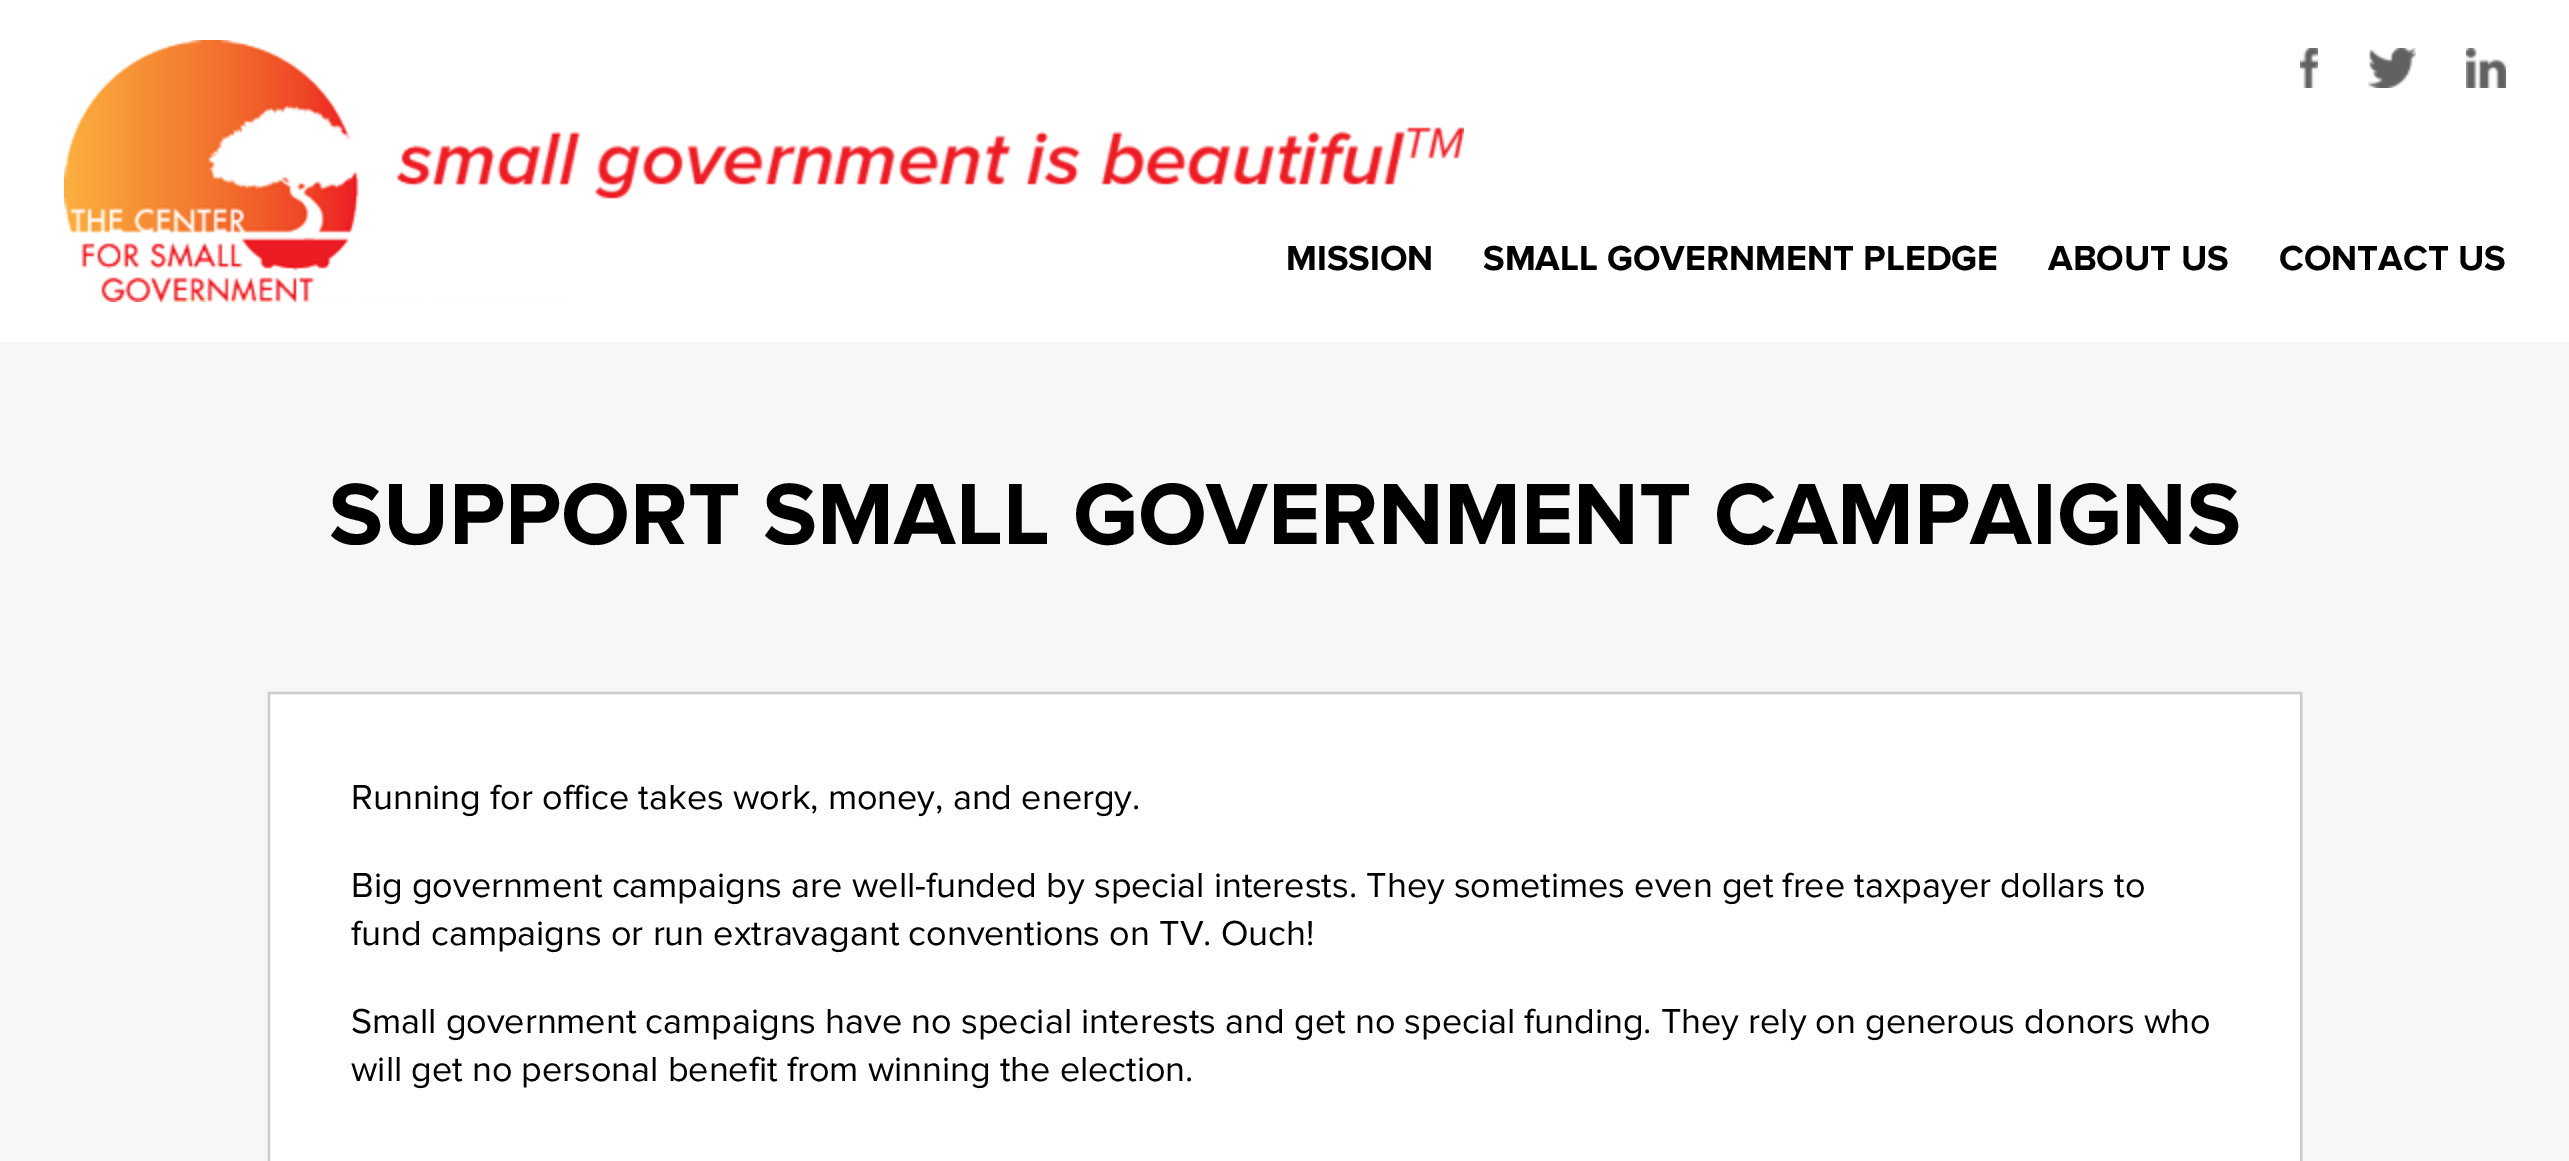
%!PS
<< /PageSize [2569 1161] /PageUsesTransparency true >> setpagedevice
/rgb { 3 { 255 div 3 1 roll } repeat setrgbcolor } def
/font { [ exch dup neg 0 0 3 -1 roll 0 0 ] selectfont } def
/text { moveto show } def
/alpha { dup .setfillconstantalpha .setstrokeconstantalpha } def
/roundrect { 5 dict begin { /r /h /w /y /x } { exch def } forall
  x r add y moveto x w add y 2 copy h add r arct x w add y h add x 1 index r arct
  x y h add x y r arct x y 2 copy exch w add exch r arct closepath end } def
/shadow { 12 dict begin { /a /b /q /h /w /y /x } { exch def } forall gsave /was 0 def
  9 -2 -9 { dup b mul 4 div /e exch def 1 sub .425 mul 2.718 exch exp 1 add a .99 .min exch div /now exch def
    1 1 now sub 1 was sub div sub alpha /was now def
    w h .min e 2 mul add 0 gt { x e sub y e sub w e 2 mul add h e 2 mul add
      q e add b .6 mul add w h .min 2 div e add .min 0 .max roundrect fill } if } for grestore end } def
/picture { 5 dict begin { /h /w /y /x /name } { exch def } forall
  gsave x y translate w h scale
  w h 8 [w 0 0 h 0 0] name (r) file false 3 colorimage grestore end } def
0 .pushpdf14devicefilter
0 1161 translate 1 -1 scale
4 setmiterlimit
255 255 255 rgb
0 0 2569 1161 rectfill
(img_01.rgb) 64 40 1400 262 picture
(img_02.rgb) 2300 48 18 40 picture
(img_03.rgb) 2368 48 48 40 picture
(img_04.rgb) 2466 48 40 40 picture
247 247 247 rgb
0 342 2569 819 rectfill
0 0 0 rgb
268 692 2034 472 0 1 0.15 shadow
255 255 255 rgb
269 693 moveto 2032 0 rlineto 0 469 rlineto -2032 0 rlineto closepath gsave fill grestore
204 204 204 rgb
2 setlinewidth
stroke
/ProximaNova-Bold 36 font
0 0 0 rgb
(MISSION) 1286 270 text
(SMALL GOVERNMENT PLEDGE) 1483 270 text
(ABOUT US) 2048 270 text
(CONTACT US) 2279 270 text
/ProximaNova-Bold 90 font
(SUPPORT SMALL GOVERNMENT CAMPAIGNS) 329 544 text
/ProximaNova-Regular 36 font
(Running for office takes work, money, and energy.) 351 809 text
(Big government campaigns are well-funded by special interests. They sometimes even get free taxpayer dollars to) 351 897 text
(fund campaigns or run extravagant conventions on TV. Ouch!) 351 945 text
(Small government campaigns have no special interests and get no special funding. They rely on generous donors who) 351 1033 text
(will get no personal benefit from winning the election.) 351 1081 text
.poppdf14devicefilter showpage
